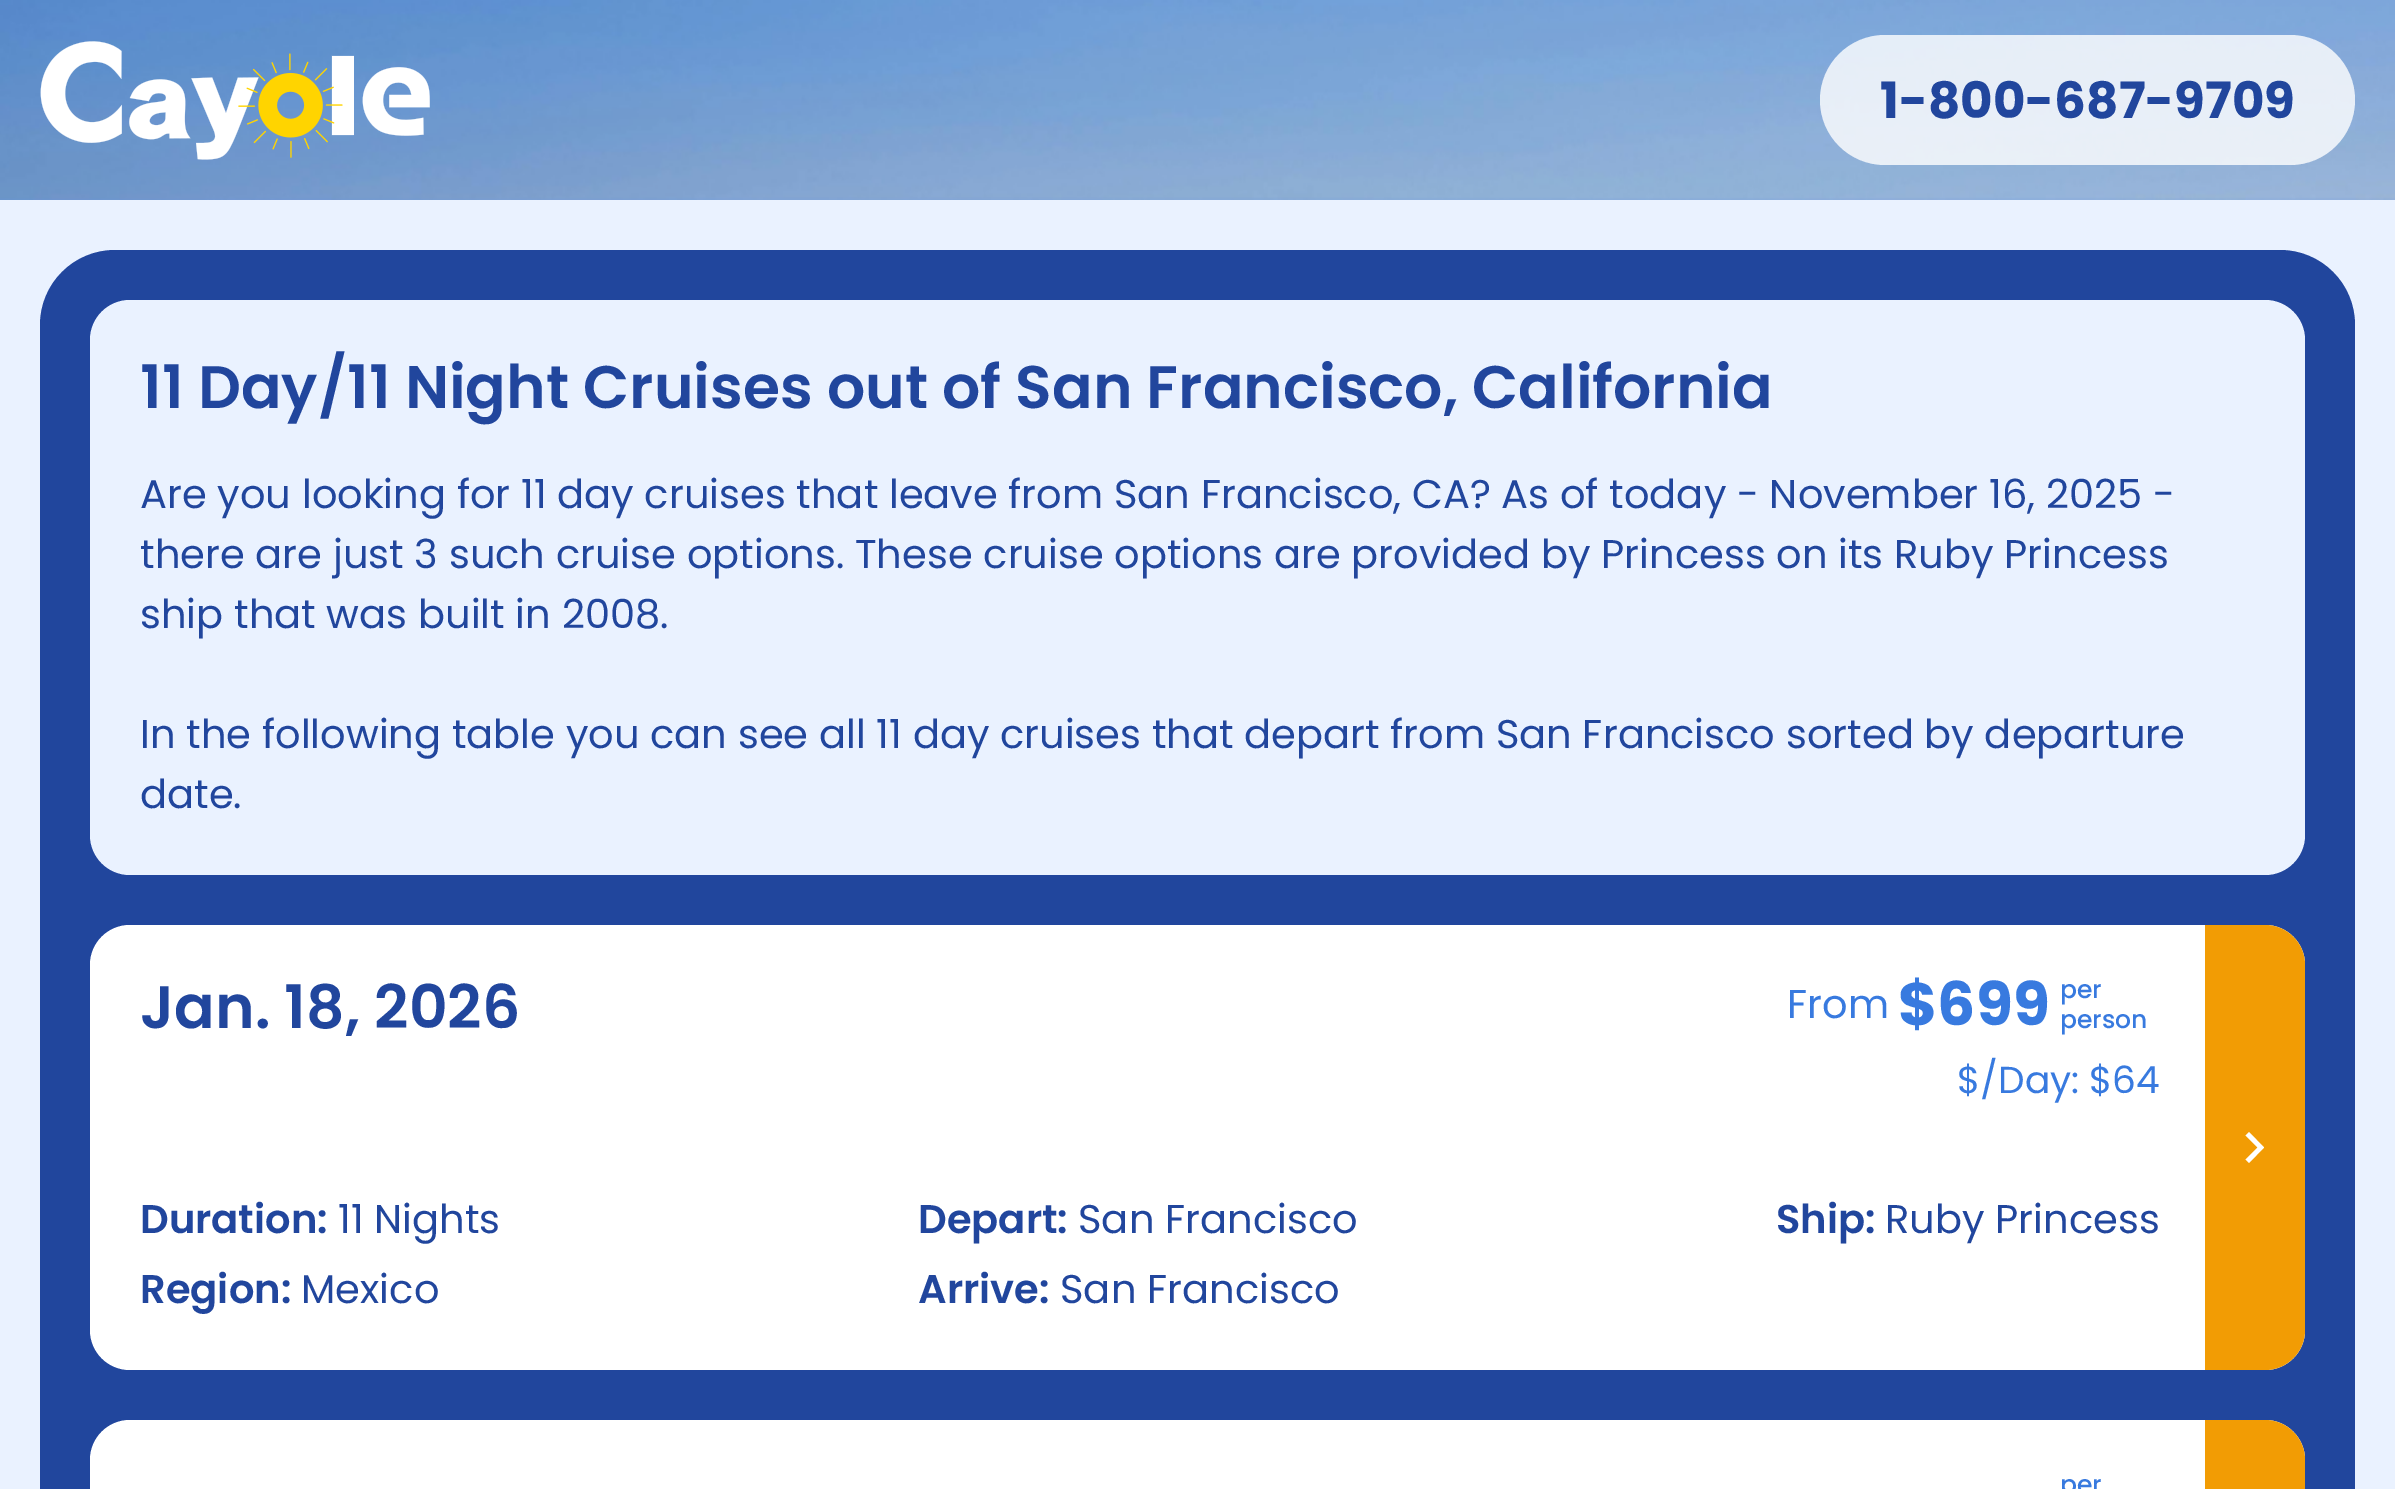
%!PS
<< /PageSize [2395 1489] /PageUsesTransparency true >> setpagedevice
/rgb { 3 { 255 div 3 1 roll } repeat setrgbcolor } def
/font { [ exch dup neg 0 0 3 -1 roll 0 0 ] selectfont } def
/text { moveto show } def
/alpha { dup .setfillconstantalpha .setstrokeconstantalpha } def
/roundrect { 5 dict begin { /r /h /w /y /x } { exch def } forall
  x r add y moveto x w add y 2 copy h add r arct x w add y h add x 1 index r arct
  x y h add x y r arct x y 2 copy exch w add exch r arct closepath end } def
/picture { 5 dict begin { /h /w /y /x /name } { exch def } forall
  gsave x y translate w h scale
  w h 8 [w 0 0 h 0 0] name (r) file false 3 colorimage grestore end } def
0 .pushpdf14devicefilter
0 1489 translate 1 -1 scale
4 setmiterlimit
255 255 255 rgb
0 0 2395 1489 rectfill
(img_01.rgb) 0 0 2395 200 picture
(img_02.rgb) 40 41 390 119 picture
0.8 alpha
1820 35 535 130 65 roundrect fill
1 alpha
234 242 255 rgb
0 200 2395 1289 rectfill
33 70 157 rgb
40 250 2315 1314 75 roundrect fill
234 242 255 rgb
90 300 2215 575 40 roundrect fill
255 255 255 rgb
90 925 2215 445 40 roundrect fill
242 156 4 rgb
2205 925 moveto 60 0 rlineto 22 0 40 18 40 40 rcurveto 0 365 rlineto 0 22 -18 40 -40 40 rcurveto -60 0 rlineto closepath fill
255 255 255 rgb
2257.5 1147.5 moveto -12 -12 rlineto 3.5 -3.5 rlineto 15 15.5 rlineto -15 15.5 rlineto -3.5 -3.5 rlineto closepath fill
90 1420 2215 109 40 roundrect fill
242 156 4 rgb
2205 1420 moveto 60 0 rlineto 22 0 40 18 40 40 rcurveto 0 29 rlineto 0 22 -18 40 -40 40 rcurveto -60 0 rlineto closepath fill
/Poppins-Bold 50 font
33 70 157 rgb
(1-800-687-9709) 1880 118 text
/Poppins-SemiBold 60 font
(11 Day/11 Night Cruises out of San Francisco, California) 140 408 text
/Poppins-Regular 40 font
(Are you looking for 11 day cruises that leave from San Francisco, CA? As of today - November 16, 2025 -) 140 508 text
(there are just 3 such cruise options. These cruise options are provided by Princess on its Ruby Princess) 140 568 text
(ship that was built in 2008.) 140 628 text
(In the following table you can see all 11 day cruises that depart from San Francisco sorted by departure) 140 748 text
(date.) 140 808 text
/Poppins-SemiBold 60 font
(Jan. 18, 2026) 140 1028 text
/Poppins-Regular 40 font
56 122 223 rgb
(From) 1787 1018 text
/Poppins-Bold 60 font
($699) 1898 1025 text
/Poppins-Medium 25 font
(per) 2060 998 text
(person) 2060 1028 text
/Poppins-Regular 37.5 font
($/Day: $64) 1957 1093 text
/Poppins-SemiBold 40 font
33 70 157 rgb
(Duration:) 140 1233 text
/Poppins-Regular 40 font
(11 Nights) 338 1233 text
/Poppins-SemiBold 40 font
(Region:) 140 1303 text
/Poppins-Regular 40 font
(Mexico) 301 1303 text
/Poppins-SemiBold 40 font
(Depart:) 918 1233 text
/Poppins-Regular 40 font
(San Francisco) 1078 1233 text
/Poppins-SemiBold 40 font
(Arrive:) 918 1303 text
/Poppins-Regular 40 font
(San Francisco) 1060 1303 text
/Poppins-SemiBold 40 font
(Ship:) 1776 1233 text
/Poppins-Regular 40 font
(Ruby Princess) 1885 1233 text
/Poppins-Medium 25 font
56 122 223 rgb
(per) 2060 1493 text
.poppdf14devicefilter showpage
